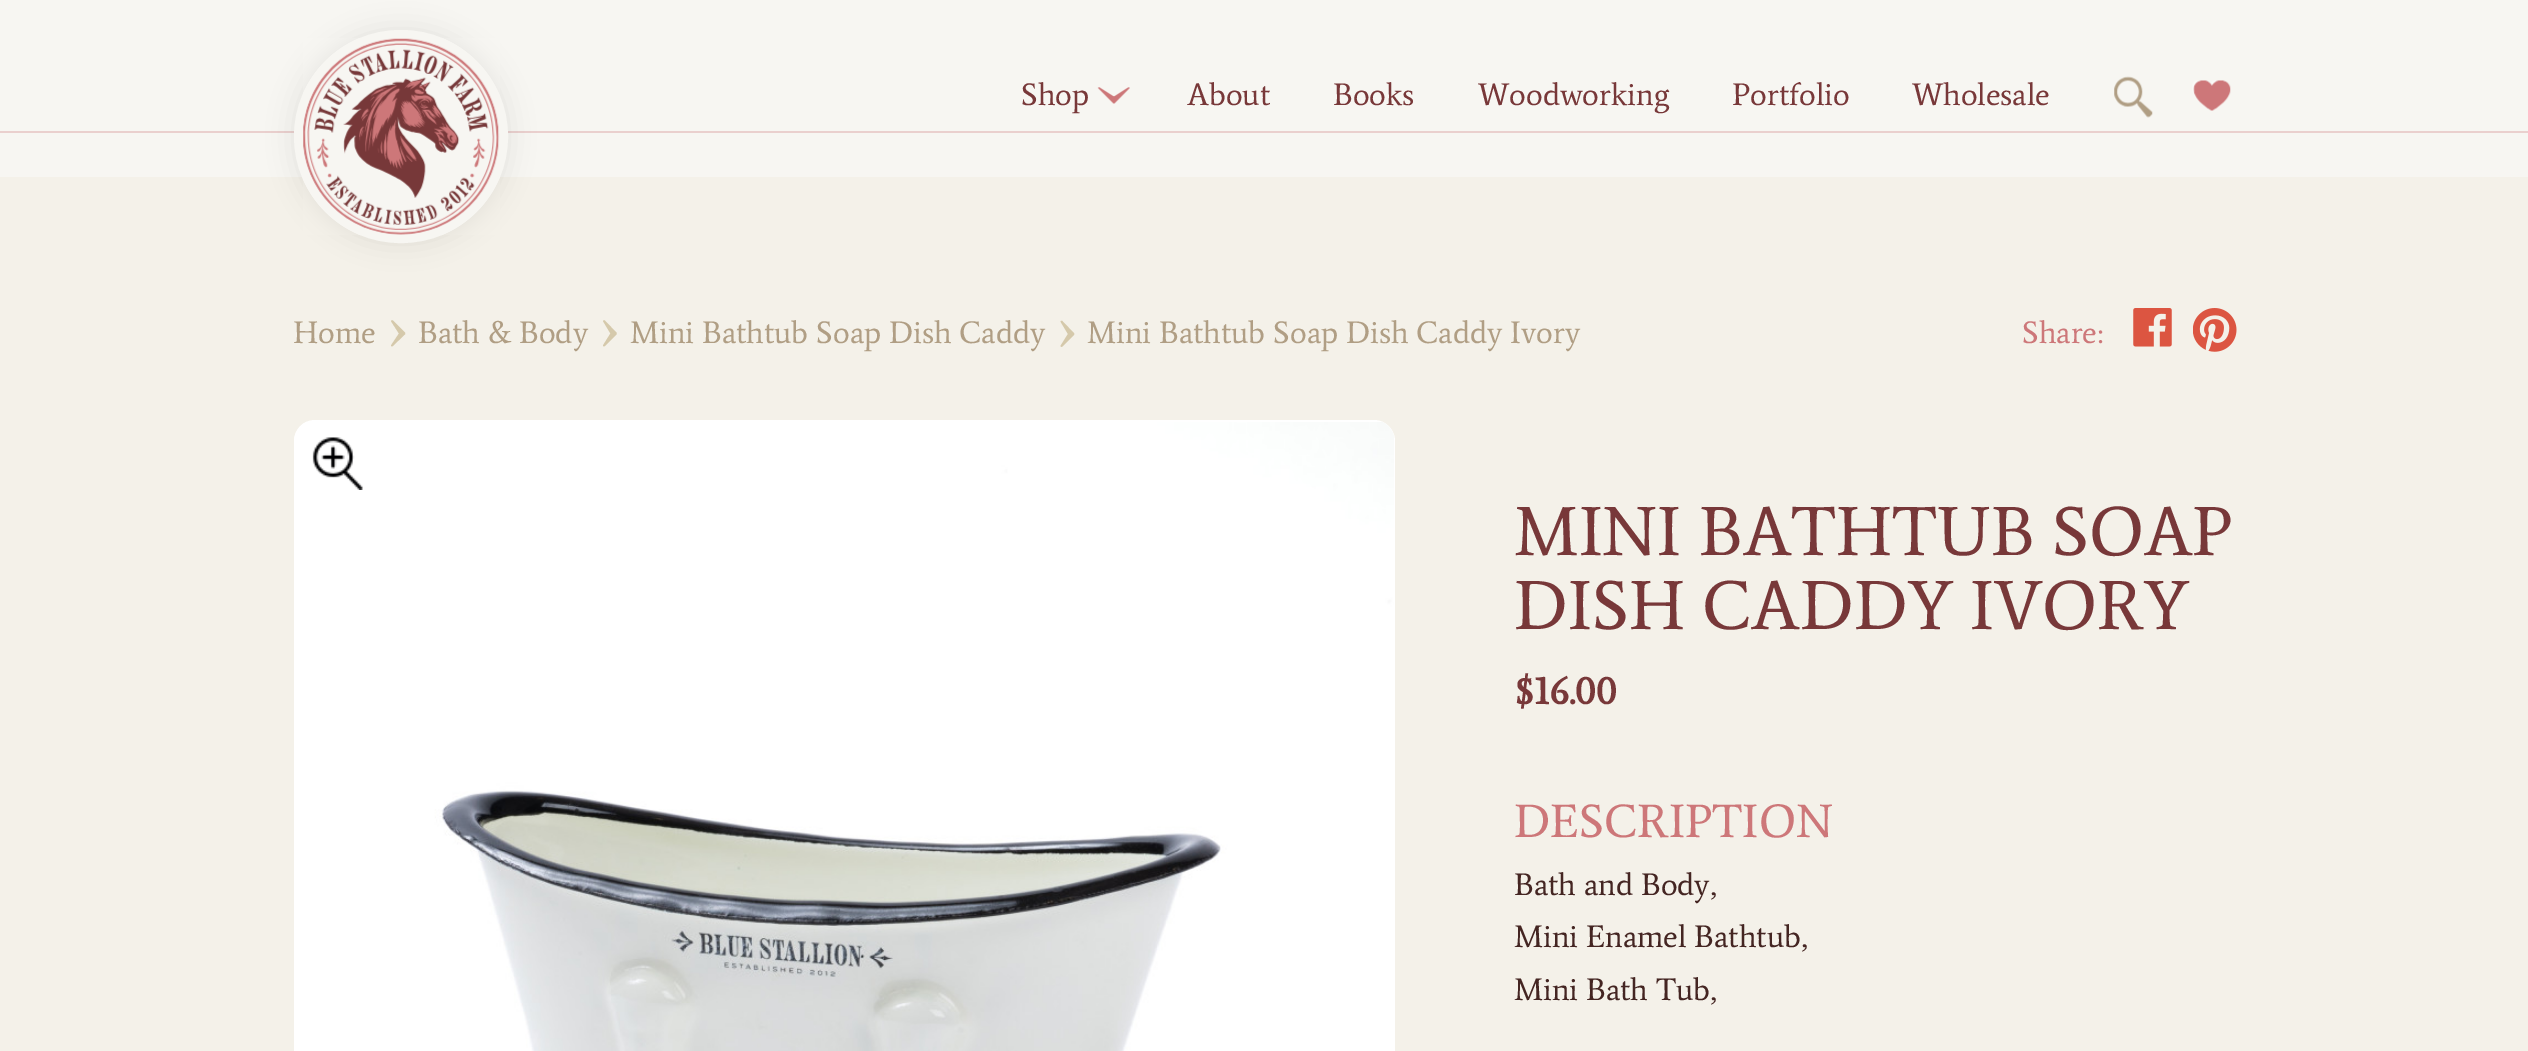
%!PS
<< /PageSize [2528 1051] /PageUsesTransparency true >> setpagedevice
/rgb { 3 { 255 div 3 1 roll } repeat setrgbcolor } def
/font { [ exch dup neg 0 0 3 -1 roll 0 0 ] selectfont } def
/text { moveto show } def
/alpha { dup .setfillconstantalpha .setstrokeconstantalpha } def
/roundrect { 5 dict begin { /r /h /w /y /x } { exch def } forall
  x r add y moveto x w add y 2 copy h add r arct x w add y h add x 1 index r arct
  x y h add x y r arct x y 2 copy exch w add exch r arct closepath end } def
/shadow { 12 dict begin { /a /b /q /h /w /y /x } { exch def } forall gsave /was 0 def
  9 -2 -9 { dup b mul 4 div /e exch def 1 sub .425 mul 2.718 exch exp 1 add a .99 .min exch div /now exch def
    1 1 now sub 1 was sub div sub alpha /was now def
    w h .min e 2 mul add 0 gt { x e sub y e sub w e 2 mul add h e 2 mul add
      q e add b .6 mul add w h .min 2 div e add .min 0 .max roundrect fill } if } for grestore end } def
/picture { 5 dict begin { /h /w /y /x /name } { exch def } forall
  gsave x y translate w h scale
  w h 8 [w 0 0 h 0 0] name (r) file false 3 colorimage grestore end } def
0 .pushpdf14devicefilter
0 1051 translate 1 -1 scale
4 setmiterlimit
244 241 233 rgb
0 0 2528 1051 rectfill
247 246 242 rgb
0 0 2528 177 rectfill
234 208 206 rgb
0 131 2528 2 rectfill
0 0 0 rgb
294 30 214 213 106.5 13 0.08 shadow
247 246 242 rgb
298.5 34.5 205 204 102 roundrect gsave fill grestore
9 setlinewidth
stroke
(img_01.rgb) 303 38 197 197 picture
(img_02.rgb) 1097 87 33 17 picture
(img_03.rgb) 2114 76 39 42 picture
(img_04.rgb) 2192 80 39 31 picture
213 201 171 rgb
400 333.5 moveto -8 12 rlineto 12.5 -12 rlineto -12.5 -12.5 rlineto closepath gsave eofill grestore
1.8 setlinewidth
1 setlinejoin
stroke
611.5 333.5 moveto -7.5 12 rlineto 12 -12 rlineto -12 -12.5 rlineto closepath gsave eofill grestore
stroke
1069 334 moveto -7.5 12 rlineto 12 -12 rlineto -12 -12.5 rlineto closepath gsave eofill grestore
stroke
(img_05.rgb) 2133 308 39 39 picture
(img_06.rgb) 2193 308 44 44 picture
255 255 255 rgb
294 420 1101 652 21 roundrect fill
(img_07.rgb) 294 422 1100 629 picture
(img_08.rgb) 312 437 51 53 picture
/Average-Regular 31.5 font
120 56 57 rgb
(Shop) 1021 105 text
(About) 1187 105 text
(Books) 1333 105 text
(Woodworking) 1478 105 text
(Portfolio) 1732 105 text
(Wholesale) 1912 105 text
176 158 132 rgb
(Home) 293 343 text
(Bath & Body) 418 343 text
(Mini Bathtub Soap Dish Caddy) 630 343 text
(Mini Bathtub Soap Dish Caddy Ivory) 1087 343 text
205 119 121 rgb
(Share:) 2022 343 text
/Average-Regular 70 font
120 56 57 rgb
(MINI BATHTUB SOAP) 1514 555 text
(DISH CADDY IVORY) 1514 629 text
/Average-Bold 39 font
($16.00) 1514 704 text
/Average-Regular 47.25 font
205 119 121 rgb
(DESCRIPTION) 1514 837 text
/Average-Regular 31.5 font
68 37 34 rgb
(Bath and Body,) 1514 895 text
(Mini Enamel Bathtub,) 1514 947 text
(Mini Bath Tub,) 1514 1000 text
.poppdf14devicefilter showpage
